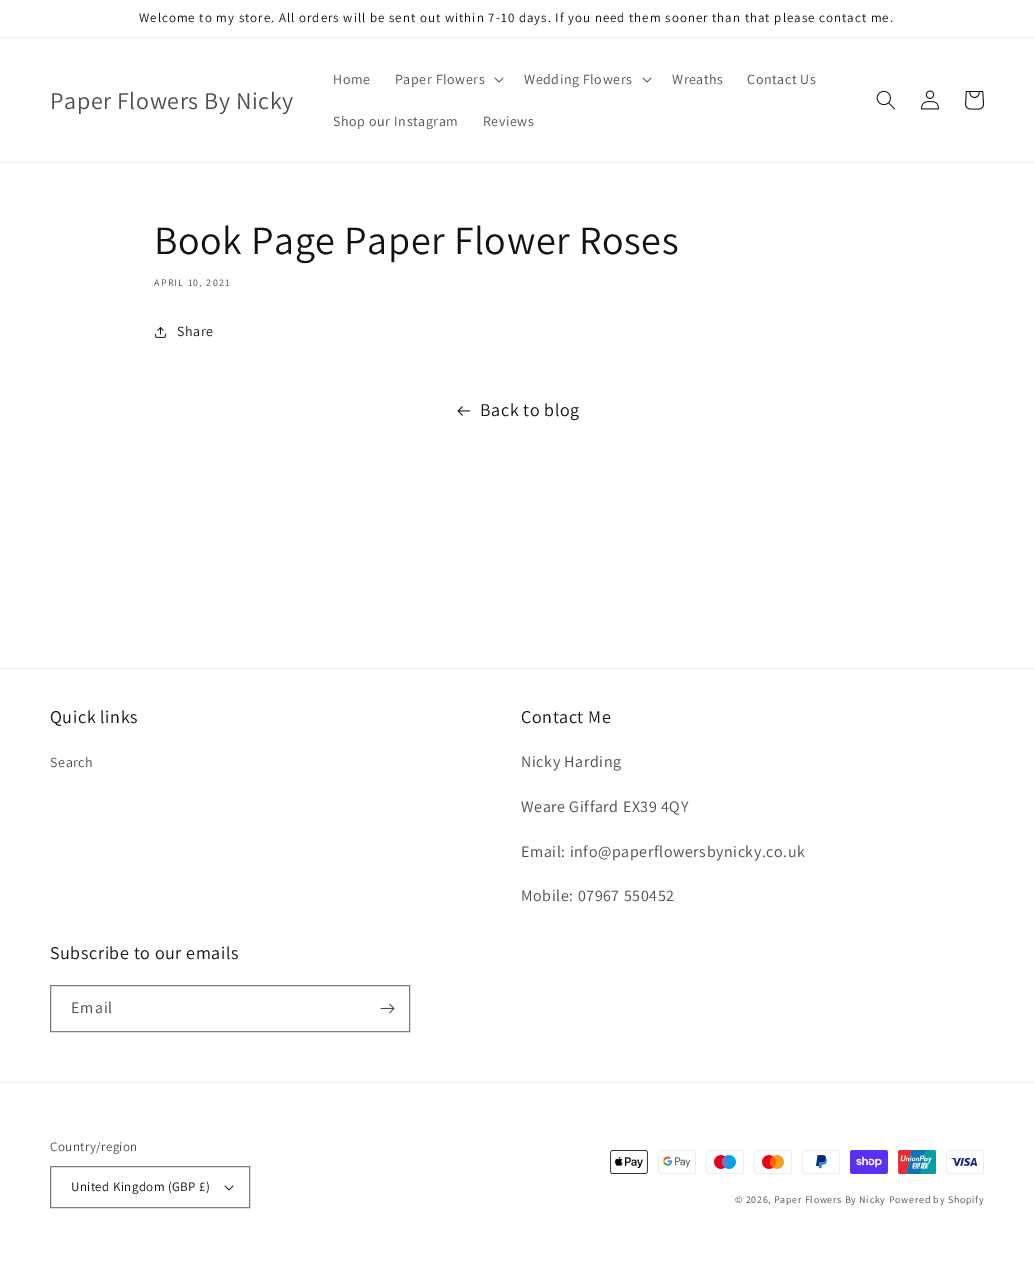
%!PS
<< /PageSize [1034 1268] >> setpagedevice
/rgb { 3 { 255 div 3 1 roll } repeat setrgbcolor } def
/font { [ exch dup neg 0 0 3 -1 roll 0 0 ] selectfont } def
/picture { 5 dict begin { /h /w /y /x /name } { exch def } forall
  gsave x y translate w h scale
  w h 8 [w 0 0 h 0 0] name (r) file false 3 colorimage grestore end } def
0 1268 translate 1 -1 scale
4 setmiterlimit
255 255 255 rgb
0 0 1034 1268 rectfill
236 236 236 rgb
0 37 1034 1 rectfill
0 162 1034 1 rectfill
(img_01.rgb) 494 77 10 6 picture
(img_01.rgb) 642 77 10 6 picture
(img_02.rgb) 876 90 19 20 picture
(img_03.rgb) 921 90 18 20 picture
(img_04.rgb) 965 91 20 19 picture
(img_05.rgb) 155 327 11 11 picture
(img_06.rgb) 457 406 13 10 picture
0 668 1034 1 rectfill
125 125 125 rgb
50.5 985.5 359 46 rectstroke
(img_07.rgb) 380 1003 15 11 picture
236 236 236 rgb
0 1082 1034 1 rectfill
(img_08.rgb) 224 1185 10 6 picture
125 125 125 rgb
50.5 1166.5 199 41 rectstroke
(img_09.rgb) 610 1150 38 24 picture
(img_10.rgb) 658 1150 38 24 picture
(img_11.rgb) 706 1150 38 24 picture
(img_12.rgb) 754 1150 38 24 picture
(img_13.rgb) 802 1150 38 24 picture
(img_14.rgb) 850 1150 38 24 picture
(img_15.rgb) 898 1150 38 24 picture
(img_16.rgb) 946 1150 38 24 picture
/Assistant-Regular 13 font
18 18 18 rgb
139 22 moveto 1 0 (Welcome to my store. All orders will be sent out within 7-10 days. If you need them sooner than that please contact me.) ashow
/Assistant-Regular 24 font
77 77 77 rgb
50 109 moveto 0.6 0 (Paper Flowers By Nicky) ashow
/Assistant-Regular 14 font
333 84 moveto 0.6 0 (Home) ashow
395 84 moveto 0.6 0 (Paper Flowers) ashow
524 84 moveto 0.6 0 (Wedding Flowers) ashow
672 84 moveto 0.6 0 (Wreaths) ashow
747 84 moveto 0.6 0 (Contact Us) ashow
333 126 moveto 0.6 0 (Shop our Instagram) ashow
483 126 moveto 0.6 0 (Reviews) ashow
/Assistant-Regular 40 font
18 18 18 rgb
154 254 moveto 0.6 0 (Book Page Paper Flower Roses) ashow
/Assistant-Regular 10 font
77 77 77 rgb
154 286 moveto 1.25 0 (APRIL 10, 2021) ashow
/Assistant-Regular 14 font
18 18 18 rgb
177 336 moveto 0.6 0 (Share) ashow
/Assistant-Regular 18 font
480 416 moveto 0.6 0 (Back to blog) ashow
50 723 moveto 0.6 0 (Quick links) ashow
/Assistant-Regular 14 font
77 77 77 rgb
50 767 moveto 0.6 0 (Search) ashow
/Assistant-Regular 18 font
18 18 18 rgb
521 723 moveto 0.6 0 (Contact Me) ashow
/Assistant-Regular 16 font
77 77 77 rgb
521 767 moveto 0.6 0 (Nicky Harding) ashow
521 812 moveto 0.6 0 (Weare Giffard EX39 4QY) ashow
521 857 moveto 0.6 0 (Email: info@paperflowersbynicky.co.uk) ashow
521 901 moveto 0.6 0 (Mobile: 07967 550452) ashow
/Assistant-Regular 18 font
18 18 18 rgb
50 959 moveto 0.6 0 (Subscribe to our emails) ashow
/Assistant-Regular 16 font
77 77 77 rgb
71 1013 moveto 1 0 (Email) ashow
/Assistant-Regular 13 font
50 1151 moveto 0.4 0 (Country/region) ashow
18 18 18 rgb
71 1191 moveto 0.4 0 (United Kingdom \(GBP £\)) ashow
/Assistant-Regular 10 font
77 77 77 rgb
735 1203 moveto 0.7 0 (© 2026, Paper Flowers By Nicky) ashow
889 1203 moveto 0.7 0 (Powered by Shopify) ashow
showpage
